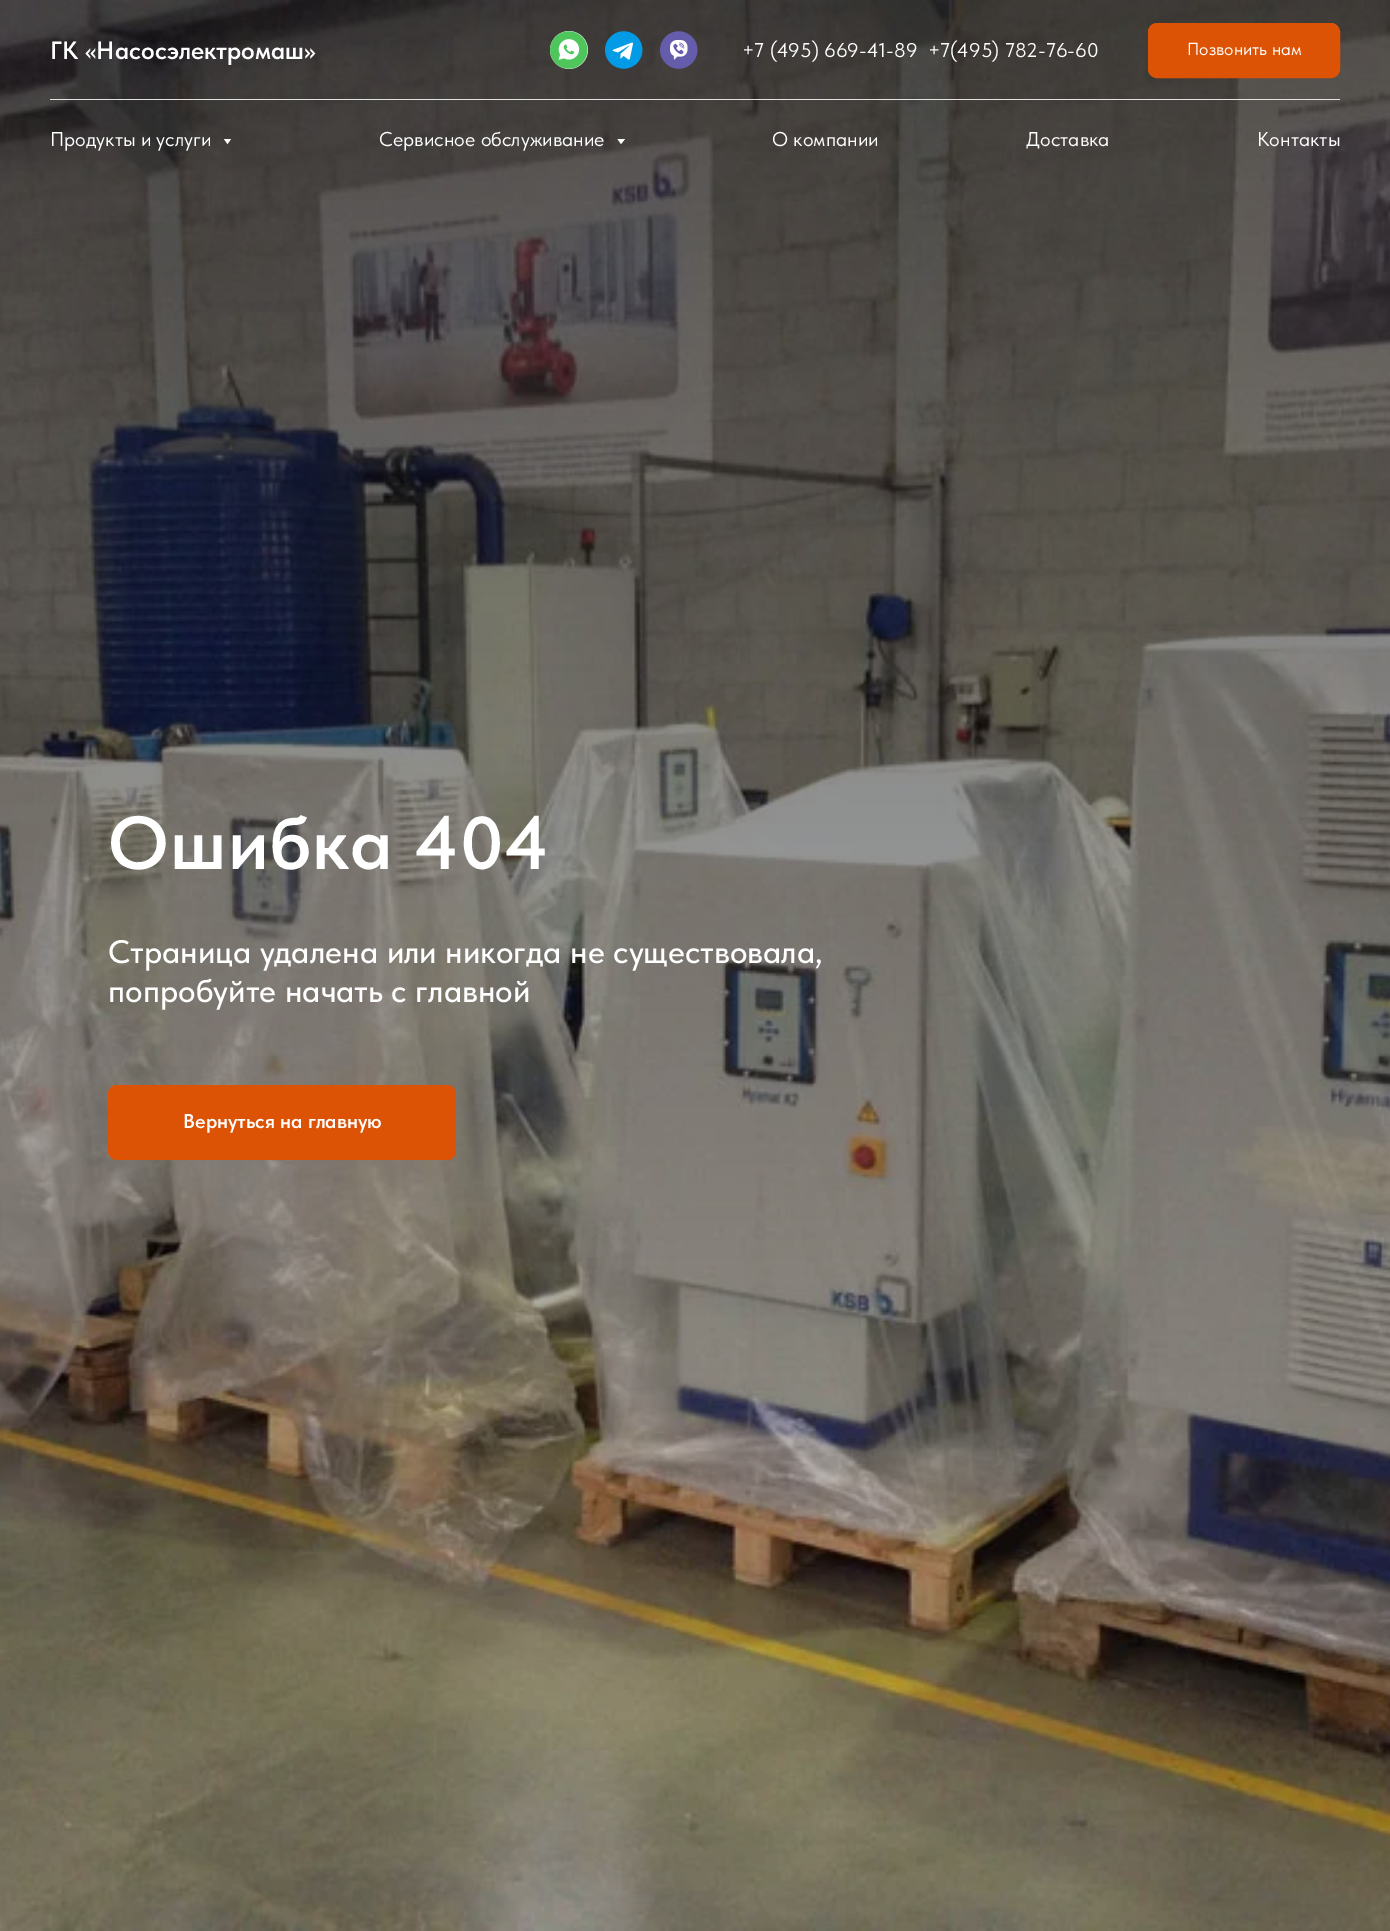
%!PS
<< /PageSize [1390 1931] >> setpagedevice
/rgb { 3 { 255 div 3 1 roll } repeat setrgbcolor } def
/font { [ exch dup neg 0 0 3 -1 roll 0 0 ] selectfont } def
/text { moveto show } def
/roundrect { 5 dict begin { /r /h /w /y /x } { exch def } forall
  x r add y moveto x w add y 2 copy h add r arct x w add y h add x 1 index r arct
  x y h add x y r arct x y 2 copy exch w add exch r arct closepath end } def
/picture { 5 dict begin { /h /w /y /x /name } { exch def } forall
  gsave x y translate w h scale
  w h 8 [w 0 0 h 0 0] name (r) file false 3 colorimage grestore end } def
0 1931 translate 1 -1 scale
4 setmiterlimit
255 255 255 rgb
0 0 1390 1931 rectfill
(img_04.rgb) 0 0 1390 1931 picture
(img_01.rgb) 550 31 38 38 picture
(img_02.rgb) 605 31 38 38 picture
(img_03.rgb) 660 31 38 38 picture
221 83 6 rgb
1148.5 23.5 191 54 8.5 roundrect gsave fill grestore
stroke
226 226 226 rgb
50 99 1290 1 rectfill
255 255 255 rgb
224 139 moveto 7 0 rlineto -3.5 5 rlineto closepath fill
617.5 139 moveto 7.5 0 rlineto -4 5 rlineto closepath fill
221 83 6 rgb
108 1085 348 75 9 roundrect fill
/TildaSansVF-SemiBold 25 font
255 255 255 rgb
(ГК «Насосэлектромаш») 50 59 text
/TildaSansVF-Regular 20 font
(+7 \(495\) 669-41-89) 742 57 text
(+7\(495\) 782-76-60) 928 57 text
/TildaSansVF-Regular 17.5 font
(Позвонить нам) 1187 55 text
/TildaSansVF-Regular 20 font
(Продукты и услуги) 50 146 text
(Сервисное обслуживание) 379 146 text
(О компании) 772 146 text
(Доставка) 1026 146 text
(Контакты) 1257 146 text
/TildaSansVF-SemiBold 75 font
108 869 moveto 1.25 0 (Ошибка 404) ashow
/TildaSansVF-Medium 32.5 font
(Страница удалена или никогда не существовала,) 108 963 text
(попробуйте начать с главной) 108 1002 text
/TildaSansVF-SemiBold 20 font
(Вернуться на главную) 183 1128 text
showpage
